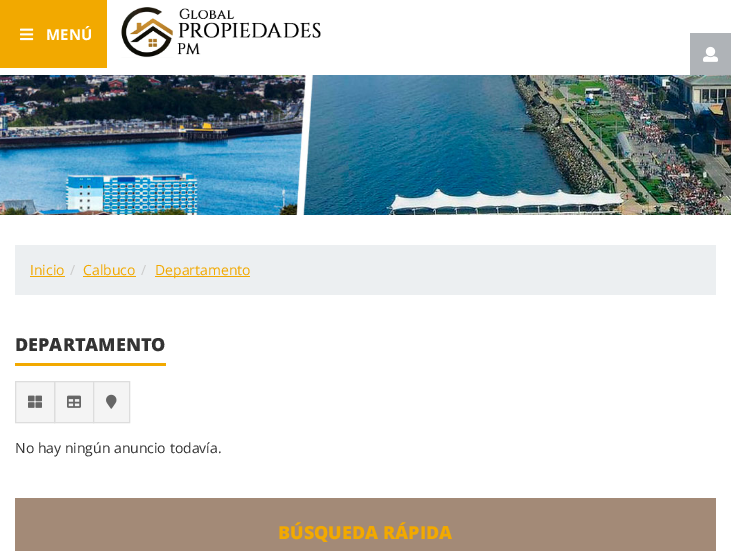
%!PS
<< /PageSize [731 551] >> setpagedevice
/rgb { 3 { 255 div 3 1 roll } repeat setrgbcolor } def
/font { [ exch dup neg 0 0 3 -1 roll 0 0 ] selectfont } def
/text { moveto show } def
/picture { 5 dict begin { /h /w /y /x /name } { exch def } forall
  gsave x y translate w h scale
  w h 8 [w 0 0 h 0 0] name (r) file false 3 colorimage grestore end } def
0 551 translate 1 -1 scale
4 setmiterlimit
255 255 255 rgb
0 0 731 551 rectfill
242 169 0 rgb
0 0 107 68 rectfill
(img_01.rgb) 20 28 14 13 picture
(img_02.rgb) 121 7 200 51 picture
175 179 183 rgb
690 33 41 42 rectfill
(img_03.rgb) 703 46 15 16 picture
(img_04.rgb) 0 75 731 140 picture
236 239 241 rgb
15 245 701 50 rectfill
242 169 0 rgb
30 276 35 1 rectfill
83 276 53 1 rectfill
155 276 95 1 rectfill
15 363 151 3 rectfill
244 244 244 rgb
54.5 381.5 moveto 39 0 rlineto 0 41 rlineto -39 0 rlineto closepath gsave fill grestore
221 221 221 rgb
stroke
244 244 244 rgb
15.5 381.5 moveto 39 0 rlineto 0 41 rlineto -39 0 rlineto closepath gsave fill grestore
221 221 221 rgb
stroke
(img_05.rgb) 28 395 14 13 picture
(img_06.rgb) 67 395 14 13 picture
244 244 244 rgb
93.5 381.5 moveto 36 0 rlineto 0 41 rlineto -36 0 rlineto closepath gsave fill grestore
221 221 221 rgb
stroke
(img_07.rgb) 106 394 11 15 picture
163 138 119 rgb
15 498 701 53 rectfill
/OpenSans-Bold 15 font
255 255 255 rgb
(MENÚ) 46 40 text
/OpenSans-Regular 14 font
242 169 0 rgb
(Inicio) 30 275 text
204 204 204 rgb
(/) 70 275 text
242 169 0 rgb
(Calbuco) 83 275 text
204 204 204 rgb
(/) 141 275 text
242 169 0 rgb
(Departamento) 155 275 text
/OpenSans-ExtraBold 18 font
51 51 51 rgb
(DEPARTAMENTO) 15 351 text
/OpenSans-Regular 14 font
(No hay ningún anuncio todavía.) 15 453 text
/OpenSans-ExtraBold 18 font
242 169 0 rgb
(BÚSQUEDA RÁPIDA) 278 539 text
showpage
